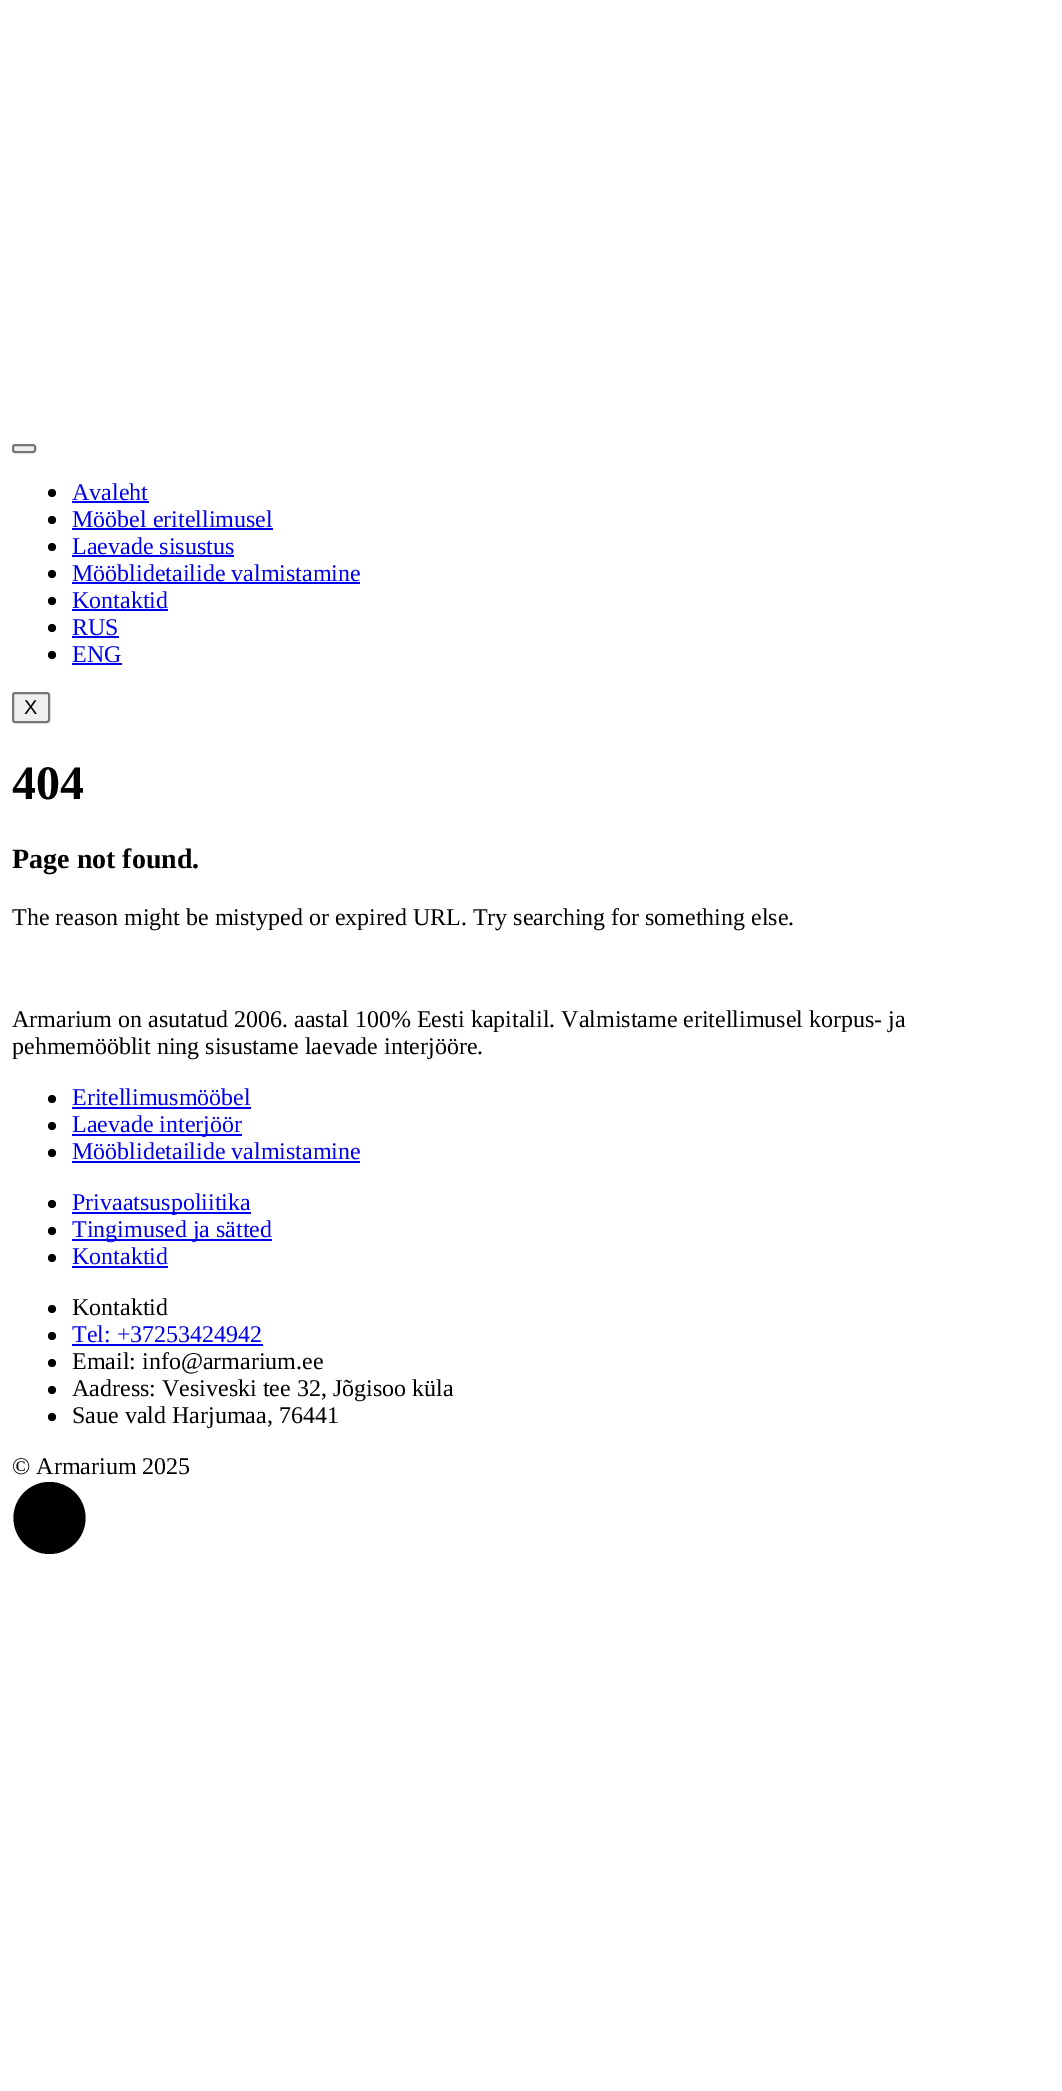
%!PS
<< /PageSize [1062 2091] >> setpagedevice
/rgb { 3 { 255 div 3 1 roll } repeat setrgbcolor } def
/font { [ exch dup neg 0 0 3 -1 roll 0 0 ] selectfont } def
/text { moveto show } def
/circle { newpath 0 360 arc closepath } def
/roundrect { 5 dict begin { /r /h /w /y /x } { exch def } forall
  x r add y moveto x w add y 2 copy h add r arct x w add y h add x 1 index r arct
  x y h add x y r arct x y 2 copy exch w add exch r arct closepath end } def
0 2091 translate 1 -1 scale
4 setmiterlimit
255 255 255 rgb
0 0 1062 2091 rectfill
239 239 239 rgb
13 445 22 7 2 roundrect gsave fill grestore
118 118 118 rgb
2 setlinewidth
stroke
0 0 0 rgb
52 493 4 circle fill
0 0 238 rgb
72 501 77 2 rectfill
0 0 0 rgb
52 520 4 circle fill
0 0 238 rgb
72 528 201 2 rectfill
0 0 0 rgb
52 547 4 circle fill
0 0 238 rgb
72 555 162 2 rectfill
0 0 0 rgb
52 574 4 circle fill
0 0 238 rgb
72 582 288 2 rectfill
0 0 0 rgb
52 601 4 circle fill
0 0 238 rgb
72 609 96 2 rectfill
0 0 0 rgb
52 628 4 circle fill
0 0 238 rgb
72 636 47 2 rectfill
0 0 0 rgb
52 655 4 circle fill
0 0 238 rgb
72 663 50 2 rectfill
239 239 239 rgb
13 693 36 29 2 roundrect gsave fill grestore
118 118 118 rgb
stroke
0 0 0 rgb
52 1099 4 circle fill
0 0 238 rgb
72 1107 179 2 rectfill
0 0 0 rgb
52 1126 4 circle fill
0 0 238 rgb
72 1134 170 2 rectfill
0 0 0 rgb
52 1153 4 circle fill
0 0 238 rgb
72 1161 288 2 rectfill
0 0 0 rgb
52 1204 4 circle fill
0 0 238 rgb
72 1212 179 2 rectfill
0 0 0 rgb
52 1231 4 circle fill
0 0 238 rgb
72 1239 200 2 rectfill
0 0 0 rgb
52 1258 4 circle fill
0 0 238 rgb
72 1266 96 2 rectfill
0 0 0 rgb
52 1309 4 circle fill
52 1336 4 circle fill
0 0 238 rgb
72 1344 191 2 rectfill
0 0 0 rgb
52 1363 4 circle fill
52 1390 4 circle fill
52 1417 4 circle fill
49.5 1518 36 circle fill
/LiberationSerif-Regular 24 font
0 0 238 rgb
(Avaleht) 72 500 text
(Mööbel eritellimusel) 72 527 text
(Laevade sisustus) 72 554 text
(Mööblidetailide valmistamine) 72 581 text
(Kontaktid) 72 608 text
(RUS) 72 635 text
(ENG) 72 662 text
/LiberationSans-Regular 20 font
0 0 0 rgb
(X) 24 714 text
/LiberationSerif-Bold 48 font
(404) 12 799 text
/LiberationSerif-Bold 28 font
(Page not found.) 12 868 text
/LiberationSerif-Regular 24 font
(The reason might be mistyped or expired URL. Try searching for something else.) 12 925 text
(Armarium on asutatud 2006. aastal 100% Eesti kapitalil. Valmistame eritellimusel korpus- ja) 12 1027 text
(pehmemööblit ning sisustame laevade interjööre.) 12 1054 text
0 0 238 rgb
(Eritellimusmööbel) 72 1105 text
(Laevade interjöör) 72 1132 text
(Mööblidetailide valmistamine) 72 1159 text
(Privaatsuspoliitika) 72 1210 text
(Tingimused ja sätted) 72 1237 text
(Kontaktid) 72 1264 text
0 0 0 rgb
(Kontaktid) 72 1315 text
0 0 238 rgb
(Теl: +37253424942) 72 1342 text
0 0 0 rgb
(Email: info@armarium.ee) 72 1369 text
(Aadress: Vesiveski tee 32, Jõgisoo küla) 72 1396 text
(Saue vald Harjumaa, 76441) 72 1423 text
(© Armarium 2025) 12 1474 text
showpage
